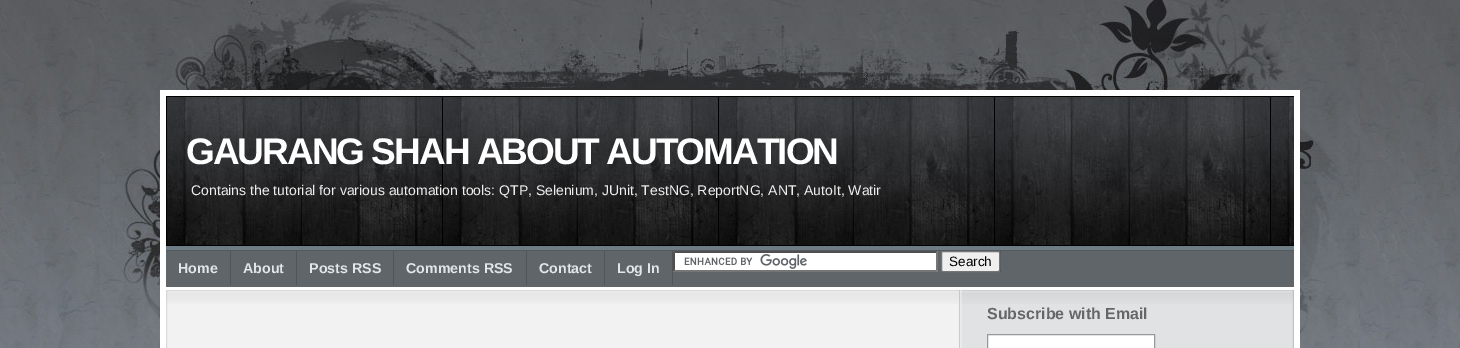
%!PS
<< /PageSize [1460 348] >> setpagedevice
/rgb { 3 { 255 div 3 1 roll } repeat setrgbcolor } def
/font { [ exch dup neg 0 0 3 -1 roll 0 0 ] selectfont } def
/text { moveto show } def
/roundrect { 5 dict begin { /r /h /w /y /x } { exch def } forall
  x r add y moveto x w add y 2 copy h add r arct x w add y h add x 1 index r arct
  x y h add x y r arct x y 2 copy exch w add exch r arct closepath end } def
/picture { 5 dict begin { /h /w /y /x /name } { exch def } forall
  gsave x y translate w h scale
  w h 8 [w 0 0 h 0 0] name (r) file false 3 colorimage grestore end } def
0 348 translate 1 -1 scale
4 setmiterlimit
255 255 255 rgb
0 0 1460 348 rectfill
(img_01.rgb) 0 0 1460 348 picture
(img_02.rgb) 100 0 1260 348 picture
160 90 1140 258 rectfill
(img_03.rgb) 166 96 1128 150 picture
110 125 133 rgb
166 246 1128 4 rectfill
96 101 106 rgb
166 251 1128 36 rectfill
85 90 95 rgb
166 250 1128 1 rectfill
80 85 90 rgb
230 251 1 34 rectfill
296 251 1 34 rectfill
393 251 1 34 rectfill
526 251 1 34 rectfill
604 251 1 34 rectfill
672 251 1 34 rectfill
1000 251 1 21 rectfill
255 255 255 rgb
673 251 265 21 rectfill
(img_04.rgb) 684 254 123 15 picture
79 79 79 rgb
673 251 moveto 265 0 rlineto -2 2 rlineto -261 0 rlineto closepath fill
118 118 118 rgb
938 251 moveto 0 21 rlineto -2 -2 rlineto 0 -17 rlineto closepath fill
938 272 moveto -265 0 rlineto 2 -2 rlineto 261 0 rlineto closepath fill
79 79 79 rgb
673 272 moveto 0 -21 rlineto 2 2 rlineto 0 17 rlineto closepath fill
239 239 239 rgb
941.5 251.5 58 20 1.5 roundrect gsave fill grestore
118 118 118 rgb
stroke
(img_05.rgb) 166 304 1128 44 picture
(img_06.rgb) 166 290 1128 14 picture
255 255 255 rgb
987.5 334.5 moveto 167 0 rlineto 0 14 rlineto -167 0 rlineto closepath gsave fill grestore
153 153 153 rgb
stroke
/LiberationSans-Bold 37 font
255 255 255 rgb
186 164 moveto -2 0 (GAURANG SHAH ABOUT AUTOMATION) ashow
/LiberationSans-Regular 14 font
238 238 238 rgb
(Contains the tutorial for various automation tools: QTP, Selenium, JUnit, TestNG, ReportNG, ANT, AutoIt, Watir) 191 195 text
/LiberationSans-Bold 14.25 font
224 230 234 rgb
(Home) 178 273 text
(About) 243 273 text
(Posts RSS) 309 273 text
(Comments RSS) 406 273 text
(Contact) 539 273 text
(Log In) 617 273 text
/LiberationSans-Regular 13.5 font
0 0 0 rgb
(Search) 949 266 text
/LiberationSans-Bold 16 font
102 102 102 rgb
(Subscribe with Email) 987 319 text
showpage
